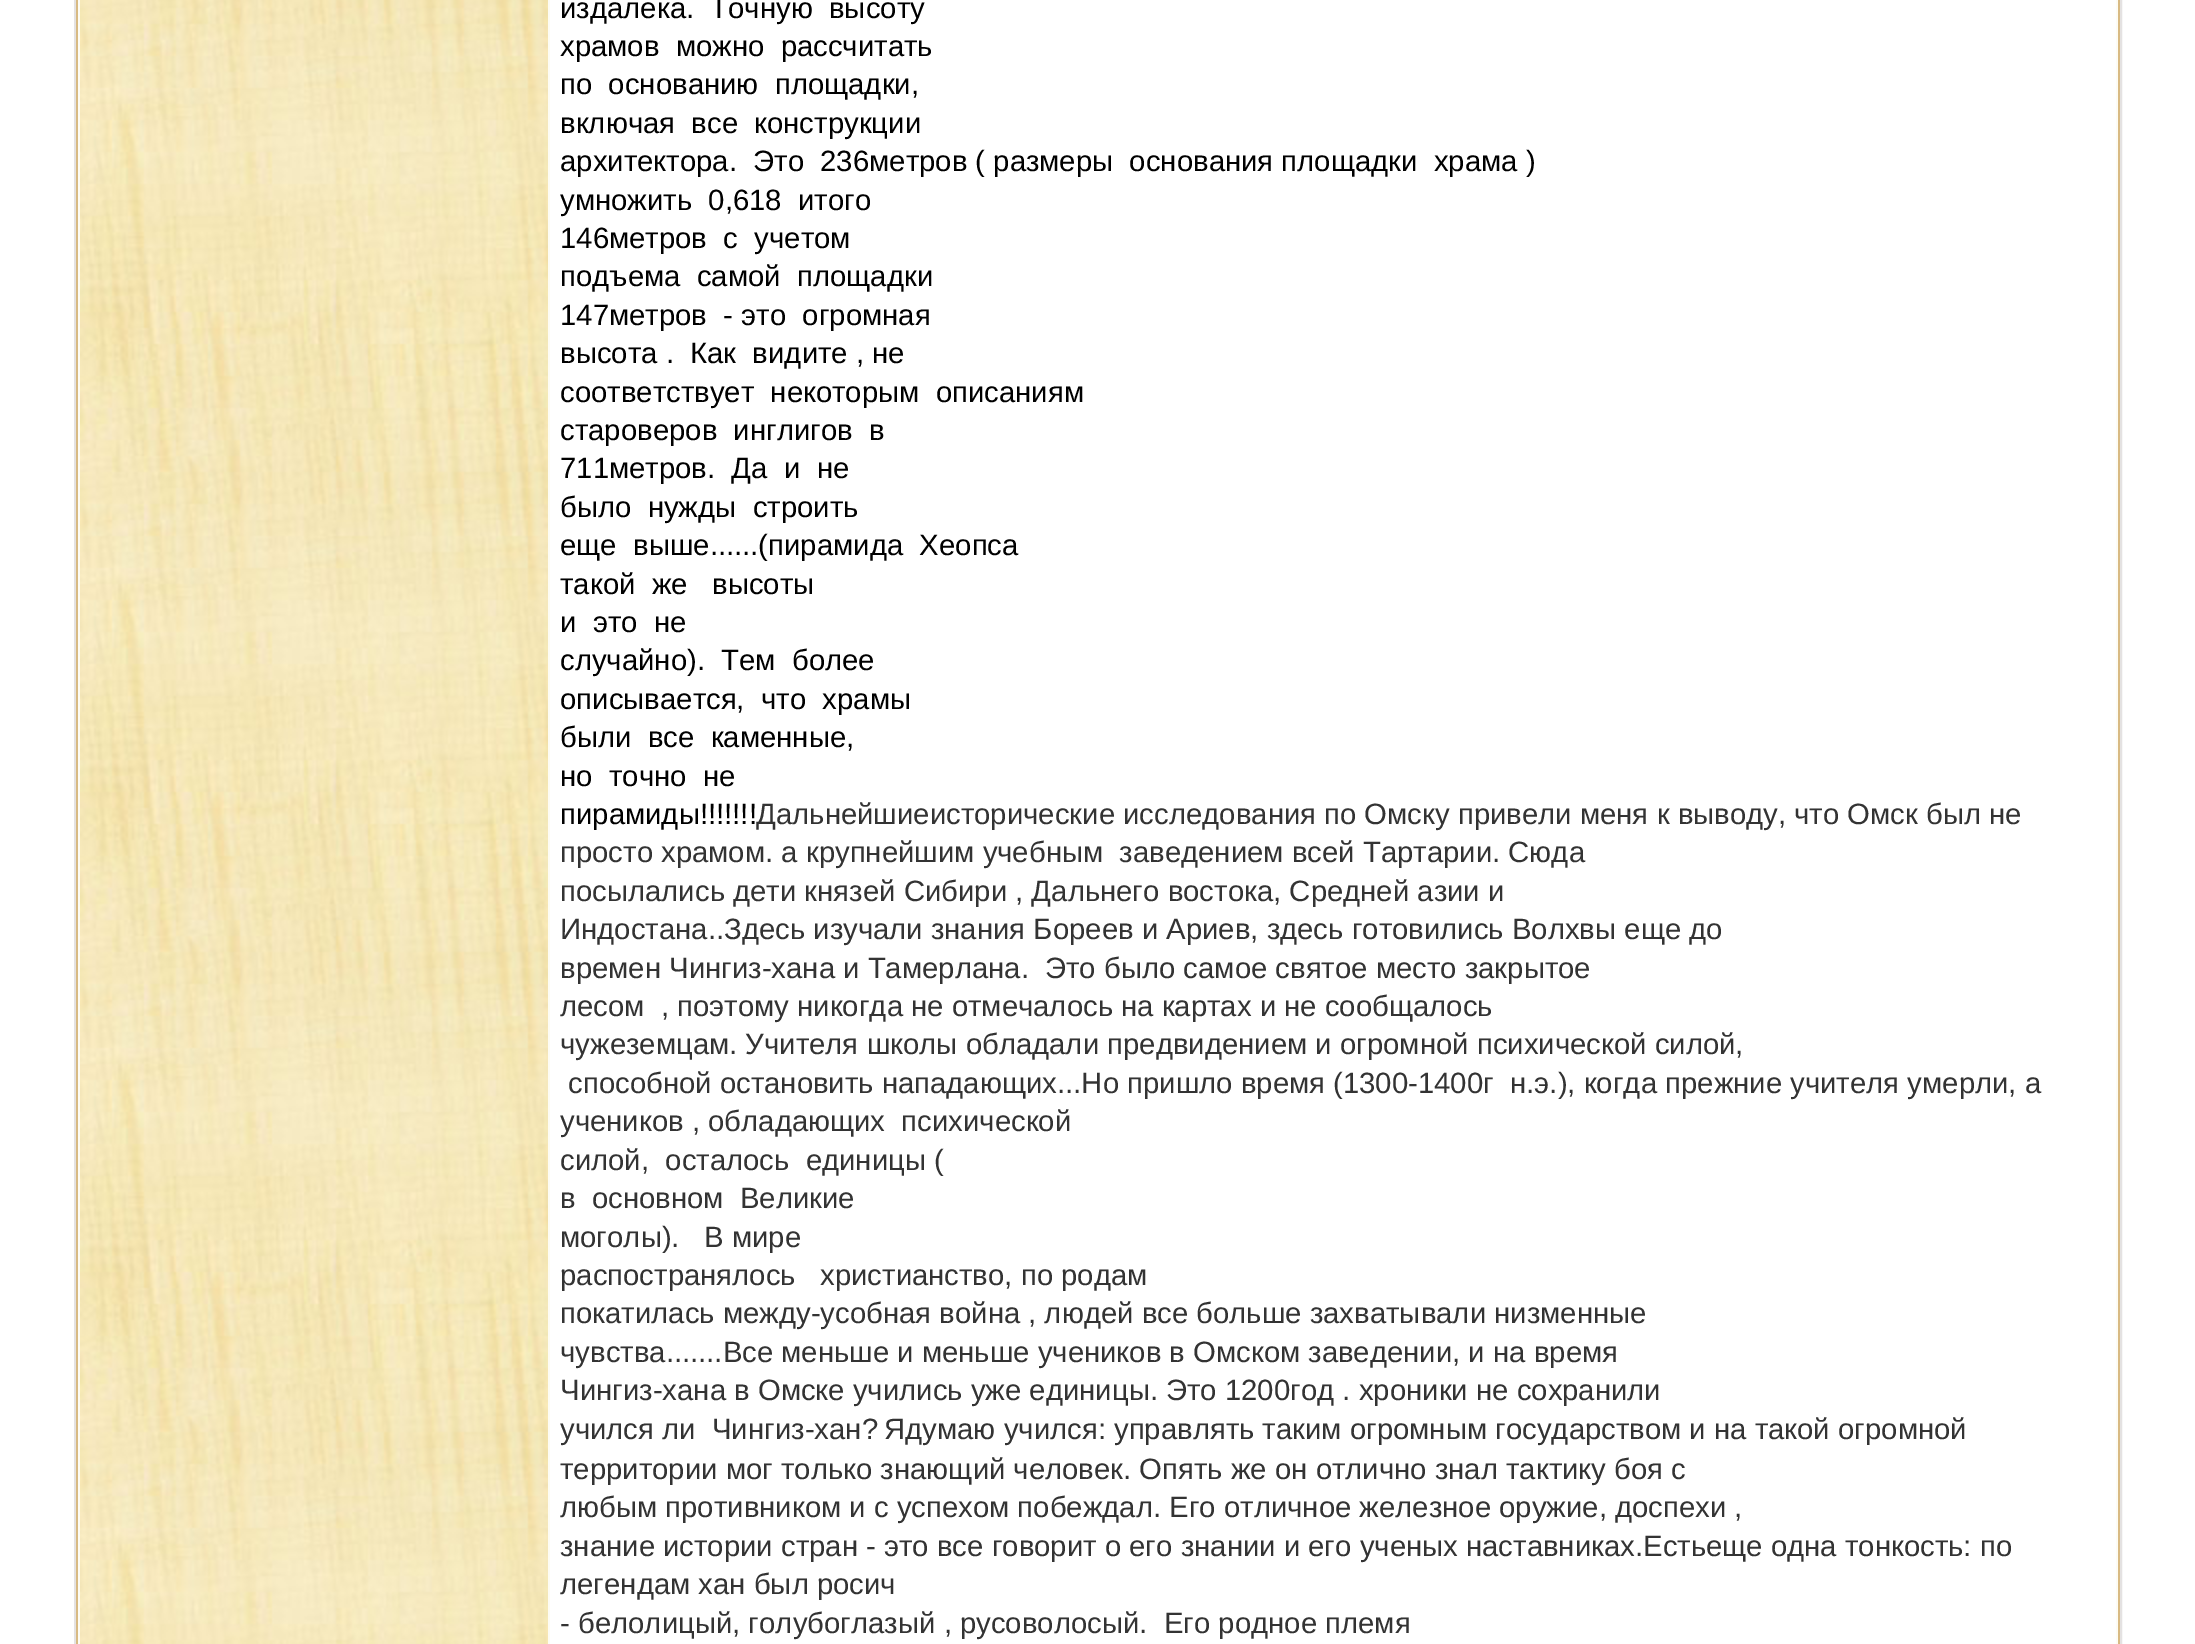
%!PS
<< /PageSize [2195 1644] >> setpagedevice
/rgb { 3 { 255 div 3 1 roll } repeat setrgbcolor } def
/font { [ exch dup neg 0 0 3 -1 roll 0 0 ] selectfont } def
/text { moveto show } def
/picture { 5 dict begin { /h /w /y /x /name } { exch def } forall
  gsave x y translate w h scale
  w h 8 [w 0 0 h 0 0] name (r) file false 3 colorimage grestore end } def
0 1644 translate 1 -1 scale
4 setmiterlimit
255 255 255 rgb
0 0 2195 1644 rectfill
228 226 226 rgb
2 setlinewidth
75 -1 2046 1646 rectstroke
216 186 131 rgb
76 0 2044 1644 rectfill
253 252 244 rgb
78 0 2040 1644 rectfill
(img_01.rgb) 80 0 468 1644 picture
255 255 255 rgb
550 0 1566 1644 rectfill
/LiberationSans-Regular 29.33 font
0 0 0 rgb
(издалека.  Точную  высоту) 560 18 text
(храмов  можно  рассчитать) 560 56 text
(по  основанию  площадки,) 560 94 text
(включая  все  конструкции) 560 133 text
(архитектора.  Это  236метров \( размеры  основания площадки  храма \)) 560 171 text
(умножить  0,618  итого) 560 210 text
(146метров  с  учетом) 560 248 text
(подъема  самой  площадки) 560 286 text
(147метров  - это  огромная) 560 325 text
(высота .  Как  видите , не) 560 363 text
(соответствует  некоторым  описаниям) 560 402 text
(староверов  инглигов  в) 560 440 text
(711метров.  Да  и  не) 560 478 text
(было  нужды  строить) 560 517 text
(еще  выше......\(пирамида  Хеопса) 560 555 text
(такой  же   высоты) 560 594 text
(и  это  не) 560 632 text
(случайно\).  Тем  более) 560 670 text
(описывается,  что  храмы) 560 709 text
(были  все  каменные,) 560 747 text
(но  точно  не) 560 786 text
(пирамиды!!!!!!!) 560 824 text
51 51 51 rgb
(Дальнейшиеисторические исследования по Омску привели меня к выводу, что Омск был не) 756 824 text
(просто храмом. а крупнейшим учебным  заведением всей Тартарии. Сюда) 560 862 text
(посылались дети князей Сибири , Дальнего востока, Средней азии и) 560 901 text
(Индостана..Здесь изучали знания Бореев и Ариев, здесь готовились Волхвы еще до) 560 939 text
(времен Чингиз-хана и Тамерлана.  Это было самое святое место закрытое) 560 978 text
(лесом  , поэтому никогда не отмечалось на картах и не сообщалось) 560 1016 text
(чужеземцам. Учителя школы обладали предвидением и огромной психической силой,) 560 1054 text
(способной остановить нападающих...Но пришло время \(1300-1400г  н.э.\), когда прежние учителя умерли, а) 568 1093 text
(учеников , обладающих  психической) 560 1131 text
(силой,  осталось  единицы \() 560 1170 text
(в  основном  Великие) 560 1208 text
(моголы\).   В мире) 560 1247 text
(распостранялось   христианство, по родам) 560 1285 text
(покатилась между-усобная война , людей все больше захватывали низменные) 560 1323 text
(чувства.......Все меньше и меньше учеников в Омском заведении, и на время) 560 1362 text
(Чингиз-хана в Омске учились уже единицы. Это 1200год . хроники не сохранили) 560 1400 text
(учился ли  Чингиз-хан?) 560 1439 text
(Ядумаю учился: управлять таким огромным государством и на такой огромной) 884 1439 text
(территории мог только знающий человек. Опять же он отлично знал тактику боя с) 560 1479 text
(любым противником и с успехом побеждал. Его отличное железное оружие, доспехи ,) 560 1517 text
(знание истории стран - это все говорит о его знании и его ученых наставниках.Естьеще одна тонкость: по) 560 1556 text
(легендам хан был росич) 560 1594 text
(- белолицый, голубоглазый , русоволосый.  Его родное племя) 560 1633 text
showpage
